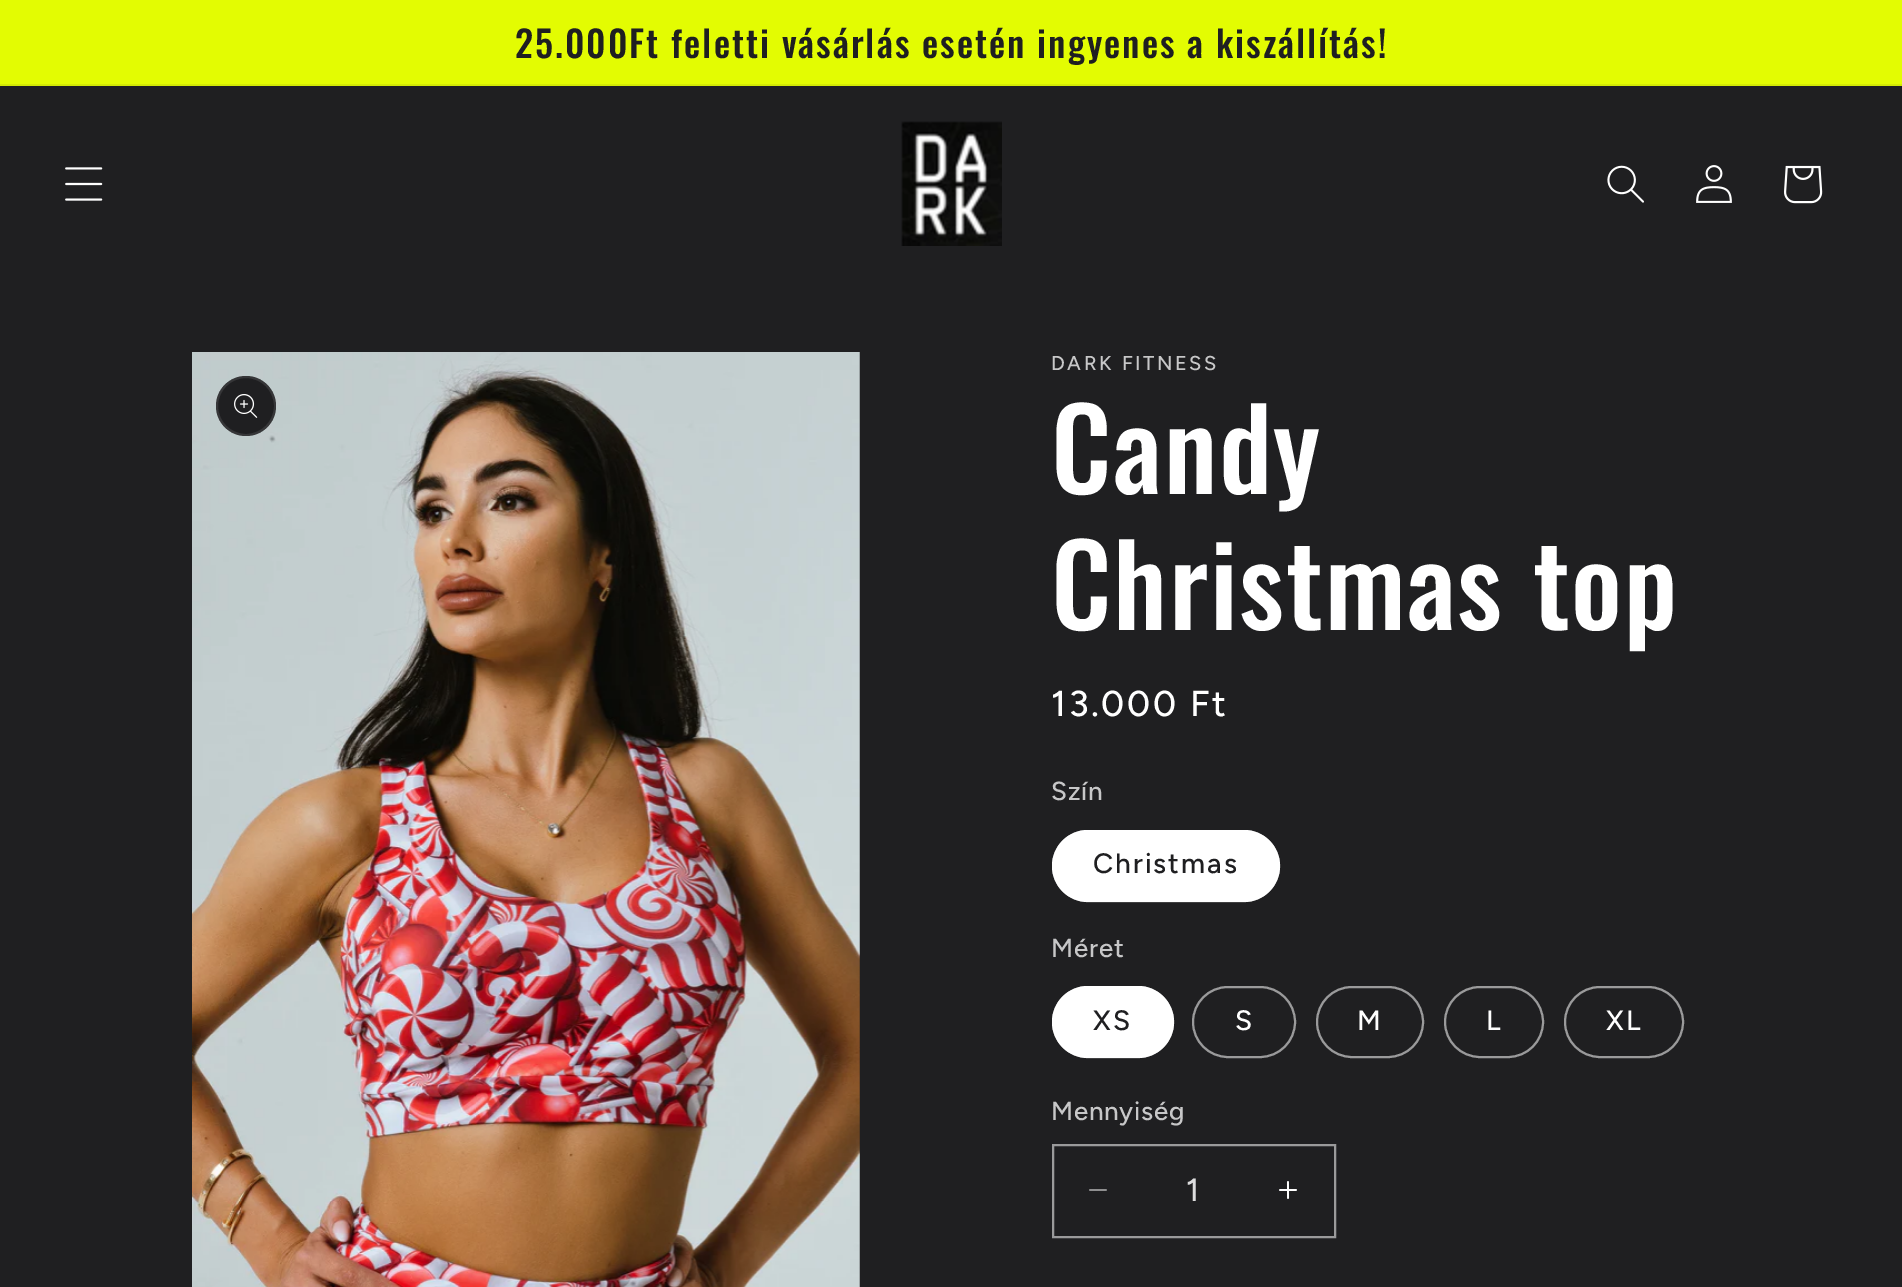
%!PS
<< /PageSize [1902 1287] /PageUsesTransparency true >> setpagedevice
/rgb { 3 { 255 div 3 1 roll } repeat setrgbcolor } def
/font { [ exch dup neg 0 0 3 -1 roll 0 0 ] selectfont } def
/text { moveto show } def
/alpha { dup .setfillconstantalpha .setstrokeconstantalpha } def
/circle { newpath 0 360 arc closepath } def
/roundrect { 5 dict begin { /r /h /w /y /x } { exch def } forall
  x r add y moveto x w add y 2 copy h add r arct x w add y h add x 1 index r arct
  x y h add x y r arct x y 2 copy exch w add exch r arct closepath end } def
/picture { 5 dict begin { /h /w /y /x /name } { exch def } forall
  gsave x y translate w h scale
  w h 8 [w 0 0 h 0 0] name (r) file false 3 colorimage grestore end } def
0 .pushpdf14devicefilter
0 1287 translate 1 -1 scale
4 setmiterlimit
31 31 33 rgb
0 0 1902 1287 rectfill
227 252 2 rgb
0 0 1902 84 rectfill
211 234 4 rgb
0 84 1902 2 rectfill
(img_01.rgb) 65 167 38 34 picture
(img_02.rgb) 901 121 101 125 picture
(img_03.rgb) 1607 165 37 38 picture
(img_04.rgb) 1696 165 36 38 picture
(img_05.rgb) 1784 165 39 39 picture
(img_06.rgb) 192 352 668 935 picture
31 31 33 rgb
246 406 30 circle fill
0.1 alpha
255 255 255 rgb
2 setlinewidth
246 406 29 circle stroke
1 alpha
(img_07.rgb) 234 394 24 24 picture
1052 830 228 72 36 roundrect fill
0.55 alpha
1053 831 226 70 35 roundrect stroke
1 alpha
1052 986 122 72 36 roundrect fill
0.55 alpha
1053 987 120 70 35 roundrect stroke
1 alpha
154 154 155 rgb
1193 987 102 70 35 roundrect stroke
1317 987 106 70 35 roundrect stroke
1445 987 98 70 35 roundrect stroke
1565 987 118 70 35 roundrect stroke
(img_08.rgb) 1089 1189 18 2 picture
(img_09.rgb) 1279 1181 18 18 picture
1053 1145 282 92 rectstroke
/Oswald-Medium 36.4 font
31 31 33 rgb
515 58 moveto 2 0 (25.000Ft feletti vásárlás esetén ingyenes a kiszállítás!) ashow
/Figtree-Medium 20 font
199 199 200 rgb
1051 370 moveto 2.6 0 (DARK FITNESS) ashow
/Oswald-Medium 112 font
255 255 255 rgb
1051 494 moveto 1.75 0 (Candy) ashow
1051 630 moveto 1.75 0 (Christmas top) ashow
/Figtree-Medium 36 font
1051 716 moveto 2.6 0 (13.000 Ft) ashow
/Figtree-Medium 26 font
199 199 200 rgb
1051 800 moveto 0.75 0 (Szín) ashow
/Figtree-Medium 28 font
31 31 33 rgb
1093 873 moveto 2 0 (Christmas) ashow
/Figtree-Medium 26 font
199 199 200 rgb
1051 957 moveto 0.75 0 (Méret) ashow
/Figtree-Medium 28 font
31 31 33 rgb
1093 1030 moveto 2 0 (XS) ashow
255 255 255 rgb
1235 1030 moveto 2 0 (S) ashow
1357 1030 moveto 2 0 (M) ashow
1486 1030 moveto 2 0 (L) ashow
1606 1030 moveto 2 0 (XL) ashow
/Figtree-Medium 26 font
199 199 200 rgb
1051 1120 moveto 0.75 0 (Mennyiség) ashow
/Figtree-Medium 32 font
221 221 222 rgb
(1) 1186 1201 text
.poppdf14devicefilter showpage
